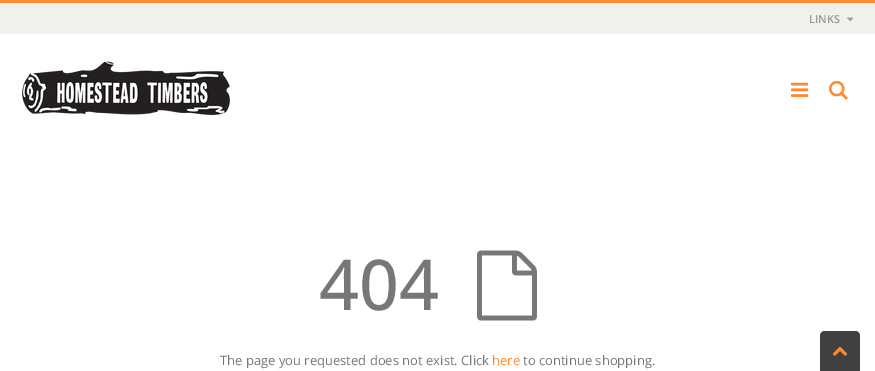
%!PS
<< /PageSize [875 371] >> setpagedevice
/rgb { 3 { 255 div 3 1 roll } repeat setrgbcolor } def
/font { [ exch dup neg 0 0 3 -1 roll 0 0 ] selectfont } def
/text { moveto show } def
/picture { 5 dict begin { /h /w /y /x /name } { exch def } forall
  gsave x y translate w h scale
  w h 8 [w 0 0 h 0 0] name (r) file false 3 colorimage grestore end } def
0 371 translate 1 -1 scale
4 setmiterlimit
255 255 255 rgb
0 0 875 371 rectfill
252 139 52 rgb
0 0 875 3 rectfill
240 240 237 rgb
0 3 875 31 rectfill
(img_01.rgb) 847 17 7 4 picture
(img_02.rgb) 22 61 208 55 picture
(img_03.rgb) 791 82 18 15 picture
(img_04.rgb) 829 80 19 20 picture
(img_05.rgb) 477 250 60 71 picture
64 64 64 rgb
825 331 moveto 30 0 rlineto 3 0 5 2 5 5 rcurveto 0 35 rlineto -40 0 rlineto 0 -35 rlineto 0 -3 2 -5 5 -5 rcurveto closepath fill
(img_06.rgb) 832 346 16 10 picture
/OpenSans-SemiBold 11 font
153 153 153 rgb
(LINKS) 809 23 text
/OpenSans-Medium 70 font
119 119 119 rgb
(404) 319 310 text
/OpenSans-Regular 13 font
(The page you requested does not exist. Click) 220 365 text
252 139 52 rgb
(here) 492 365 text
119 119 119 rgb
(to continue shopping.) 523 365 text
showpage
